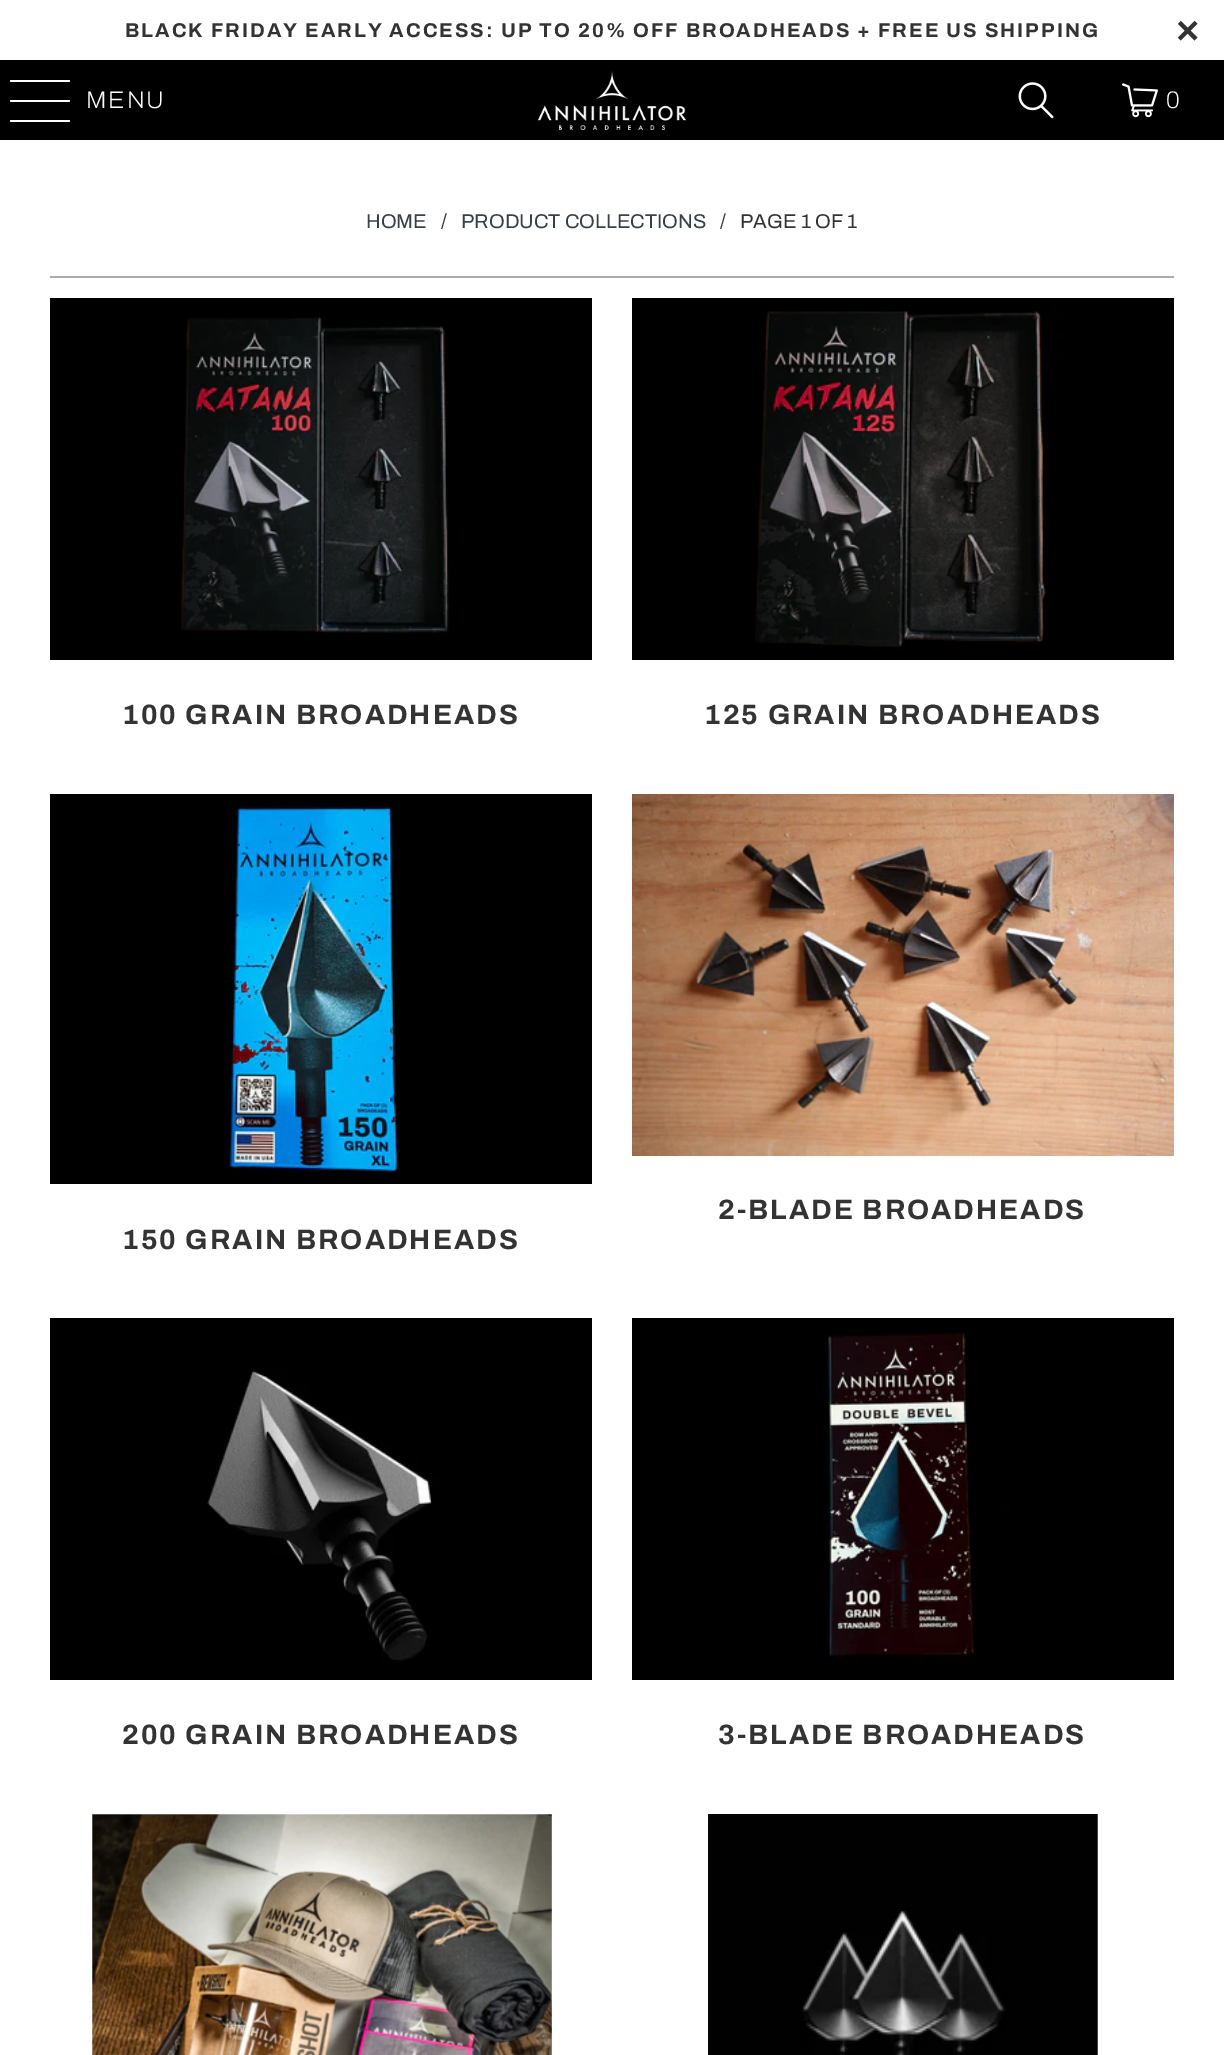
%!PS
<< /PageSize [1224 2055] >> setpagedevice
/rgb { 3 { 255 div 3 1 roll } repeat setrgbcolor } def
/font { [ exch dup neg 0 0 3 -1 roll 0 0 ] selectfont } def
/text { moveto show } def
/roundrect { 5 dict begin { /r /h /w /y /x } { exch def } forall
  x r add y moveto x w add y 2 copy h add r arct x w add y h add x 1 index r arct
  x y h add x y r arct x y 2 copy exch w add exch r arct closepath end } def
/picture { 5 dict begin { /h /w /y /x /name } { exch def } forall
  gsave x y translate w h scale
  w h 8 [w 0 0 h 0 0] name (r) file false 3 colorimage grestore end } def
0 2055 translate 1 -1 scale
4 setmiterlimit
255 255 255 rgb
0 0 1224 2055 rectfill
0 0 0 rgb
0 60 1224 80 rectfill
255 255 255 rgb
10 80 60 2 1 roundrect fill
10 100 60 2 1 roundrect fill
10 120 60 2 1 roundrect fill
(img_01.rgb) 538 70 148 60 picture
(img_02.rgb) 1018 82 36 37 picture
(img_03.rgb) 1122 83 36 35 picture
170 170 170 rgb
50 276 1124 2 rectfill
(img_04.rgb) 50 298 542 362 picture
(img_05.rgb) 632 298 542 362 picture
(img_06.rgb) 632 794 542 362 picture
(img_07.rgb) 50 794 542 390 picture
(img_08.rgb) 50 1318 542 362 picture
(img_09.rgb) 632 1318 542 362 picture
(img_10.rgb) 92 1814 460 241 picture
(img_11.rgb) 708 1814 390 241 picture
/Archivo-Bold 20 font
51 51 51 rgb
125 37 moveto 2 0 (BLACK FRIDAY EARLY ACCESS: UP TO 20% OFF BROADHEADS + FREE US SHIPPING) ashow
/LiberationSans-Bold 40 font
1176 44 moveto 2 0 (×) ashow
/Archivo-ExtraLight 24 font
255 255 255 rgb
86 108 moveto 2 0 (MENU) ashow
1166 108 moveto 2 0 (0) ashow
/Archivo-Regular 20 font
55 63 71 rgb
(HOME) 366 228 text
(/) 441 228 text
(PRODUCT COLLECTIONS) 461 228 text
(/) 720 228 text
51 51 51 rgb
(PAGE 1 OF 1) 740 228 text
/Archivo-Bold 28 font
122 724 moveto 2 0 (100 GRAIN BROADHEADS) ashow
704 724 moveto 2 0 (125 GRAIN BROADHEADS) ashow
718 1219 moveto 2 0 (2-BLADE BROADHEADS) ashow
122 1249 moveto 2 0 (150 GRAIN BROADHEADS) ashow
122 1744 moveto 2 0 (200 GRAIN BROADHEADS) ashow
718 1744 moveto 2 0 (3-BLADE BROADHEADS) ashow
showpage
